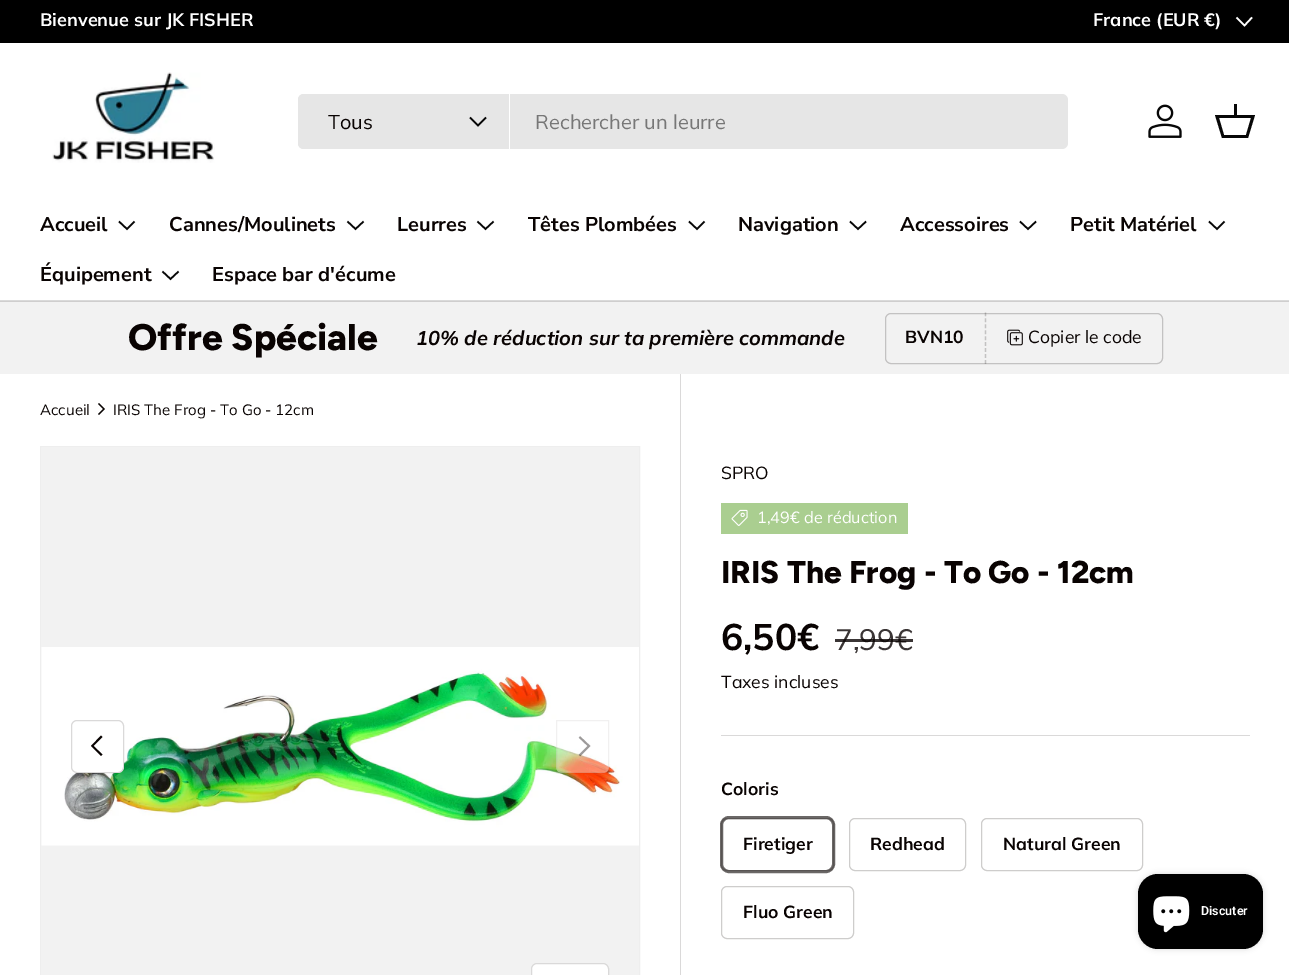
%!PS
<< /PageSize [1289 975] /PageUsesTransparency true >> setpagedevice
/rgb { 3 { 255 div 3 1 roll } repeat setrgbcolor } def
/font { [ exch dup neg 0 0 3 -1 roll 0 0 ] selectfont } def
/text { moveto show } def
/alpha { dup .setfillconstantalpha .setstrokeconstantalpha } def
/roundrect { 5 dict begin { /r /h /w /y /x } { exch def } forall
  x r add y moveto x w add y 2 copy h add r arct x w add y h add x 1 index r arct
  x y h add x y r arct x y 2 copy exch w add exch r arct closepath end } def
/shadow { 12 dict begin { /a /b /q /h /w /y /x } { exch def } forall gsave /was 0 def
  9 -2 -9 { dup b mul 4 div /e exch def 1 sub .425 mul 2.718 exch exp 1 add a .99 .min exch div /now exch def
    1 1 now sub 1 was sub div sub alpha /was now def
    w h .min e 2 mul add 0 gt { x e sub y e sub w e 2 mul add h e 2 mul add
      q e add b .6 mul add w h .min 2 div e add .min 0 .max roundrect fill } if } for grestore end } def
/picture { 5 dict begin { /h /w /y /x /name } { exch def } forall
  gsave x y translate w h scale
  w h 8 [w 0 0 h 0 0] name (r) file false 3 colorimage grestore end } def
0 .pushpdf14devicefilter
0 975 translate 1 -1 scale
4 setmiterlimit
255 255 255 rgb
0 0 1289 975 rectfill
0 0 0 rgb
0 0 1289 43 rectfill
255 255 255 rgb
1.6 setlinewidth
1252 17.5 moveto -7.5 8 rlineto -8 -8 rlineto stroke
218 218 218 rgb
0 300 1289 1 rectfill
(img_01.rgb) 52 72 163 91 picture
230 230 230 rgb
298 94 770 55 6 roundrect fill
304 94 moveto 206 0 rlineto 0 55 rlineto -206 0 rlineto -3.5 0 -6 -2.5 -6 -6 rcurveto 0 -43 rlineto 0 -3.5 2.5 -6 6 -6 rcurveto closepath fill
255 255 255 rgb
509 94 1 55 rectfill
7 7 7 rgb
486 117.5 moveto -8 8 rlineto -8 -8 rlineto stroke
(img_02.rgb) 1148 104 34 34 picture
1234 115 moveto 0 -11 rlineto 3 0 rlineto 0 11 rlineto 18 0 rlineto -7 23 rlineto -26 0 rlineto -7 -23 rlineto closepath 1219 118 moveto 5 17 rlineto 22 0 rlineto 5 -17 rlineto closepath fill
134.5 221.5 moveto -7.5 7.5 rlineto -8 -7.5 rlineto stroke
363.5 221.5 moveto -8 7.5 rlineto -8 -7.5 rlineto stroke
493.5 221.5 moveto -8 7.5 rlineto -8 -7.5 rlineto stroke
704.5 221.5 moveto -7.5 7.5 rlineto -8 -7.5 rlineto stroke
866 221.5 moveto -8 7.5 rlineto -8 -7.5 rlineto stroke
1036 221.5 moveto -8 7.5 rlineto -8 -7.5 rlineto stroke
1224.5 221.5 moveto -7.5 7.5 rlineto -8 -7.5 rlineto stroke
178.5 271.5 moveto -8 7.5 rlineto -8 -7.5 rlineto stroke
242 242 242 rgb
0 302 1289 72 rectfill
207 206 206 rgb
0 301 1289 1 rectfill
195 194 194 rgb
1 setlinewidth
885.5 313.5 277 50 5.5 roundrect stroke
0.2 alpha
9 3 2 rgb
1.2 setlinewidth
[3.75 2.19] 0 setdash
985.5 312.5 moveto 0 51.5 rlineto stroke
1 alpha
(img_03.rgb) 1007 329 16 17 picture
1.1 setlinewidth
[] 0 setdash
98.5 403.5 moveto 5.5 5.5 rlineto -5.5 5.5 rlineto stroke
244 244 244 rgb
41 447 598 1 rectfill
238 238 238 rgb
1 setlinewidth
40.5 446.5 599 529 rectstroke
242 242 242 rgb
41 448 598 527 rectfill
(img_04.rgb) 41 647 598 199 picture
255 255 255 rgb
71 720 53 53 6 roundrect fill
0.15 alpha
9 3 2 rgb
71.5 720.5 52 52 5.5 roundrect stroke
1 alpha
91 746 moveto 10 -10.5 rlineto 1.5 1.5 rlineto -9 9 rlineto 9 8.5 rlineto -1.5 1.5 rlineto closepath fill
0.4 alpha
255 255 255 rgb
556 720 53 53 6 roundrect fill
0.06 alpha
9 3 2 rgb
556.5 720.5 52 52 rectstroke
0.4 alpha
1.9 setlinewidth
579.5 737 moveto 9.5 9 rlineto -9.5 9.5 rlineto stroke
1 alpha
255 255 255 rgb
531 963 78 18 6 roundrect fill
0.15 alpha
9 3 2 rgb
1 setlinewidth
531.5 963.5 77 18 5.5 roundrect stroke
1 alpha
218 217 217 rgb
680 374 1 601 rectfill
170 206 144 rgb
721 503 187 31 rectfill
(img_05.rgb) 731 509 17 17 picture
218 217 217 rgb
721 735 529 1 rectfill
206 205 204 rgb
721.5 818.5 112 52 5.5 roundrect stroke
0.6 alpha
9 3 2 rgb
3 setlinewidth
721.5 817.5 112 54 7.5 roundrect stroke
1 alpha
206 205 204 rgb
1 setlinewidth
849.5 818.5 116 52 5.5 roundrect stroke
981.5 818.5 161 52 5.5 roundrect stroke
721.5 886.5 132 52 5.5 roundrect stroke
0 0 0 rgb
1138 874 125 75 20 3 0.15 shadow
1138 874 125 75 20 roundrect fill
(img_06.rgb) 1153 896 37 37 picture
/Muli-Bold 18 font
255 255 255 rgb
(Bienvenue sur JK FISHER) 40 26 text
(France \(EUR €\)) 1093 26 text
/Muli-Regular 20 font
9 3 2 rgb
(Tous) 328 129 text
119 119 119 rgb
(Rechercher un leurre) 535 129 text
/NunitoSans-Bold 20 font
9 3 2 rgb
(Accueil) 40 231 text
(Cannes/Moulinets) 169 231 text
(Leurres) 397 231 text
(Têtes Plombées) 528 231 text
(Navigation) 738 231 text
(Accessoires) 900 231 text
(Petit Matériel) 1070 231 text
(Équipement) 40 281 text
(Espace bar d'écume) 212 281 text
/Figtree-ExtraBold 37 font
(Offre Spéciale) 128 350 text
/Muli-BoldItalic 20 font
(10% de réduction sur ta première commande) 416 345 text
/Muli-Bold 17.5 font
(BVN10) 905 343 text
/Muli-Regular 17.5 font
(Copier le code) 1028 343 text
/Muli-Regular 15 font
(Accueil) 40 415 text
(IRIS The Frog - To Go - 12cm) 113 415 text
/Muli-Regular 17.5 font
(SPRO) 721 479 text
/Muli-Regular 16.25 font
255 255 255 rgb
(1,49€ de réduction) 757 523 text
/Figtree-ExtraBold 31.5 font
9 3 2 rgb
(IRIS The Frog - To Go - 12cm) 721 583 text
/Muli-Bold 37 font
(6,50€) 721 650 text
/Muli-Regular 29.5 font
58 53 53 rgb
(7,99€) 835 650 text
0.8 alpha
9 3 2 rgb
835 639 78 3 rectfill
/Muli-Regular 17.5 font
1 alpha
(Taxes incluses) 721 688 text
/Muli-Bold 17.5 font
(Coloris) 721 795 text
(Firetiger) 743 850 text
(Redhead) 870 850 text
(Natural Green) 1003 850 text
(Fluo Green) 743 918 text
/Roboto-SemiBold 12.5 font
255 255 255 rgb
(Discuter) 1201 915 text
.poppdf14devicefilter showpage
